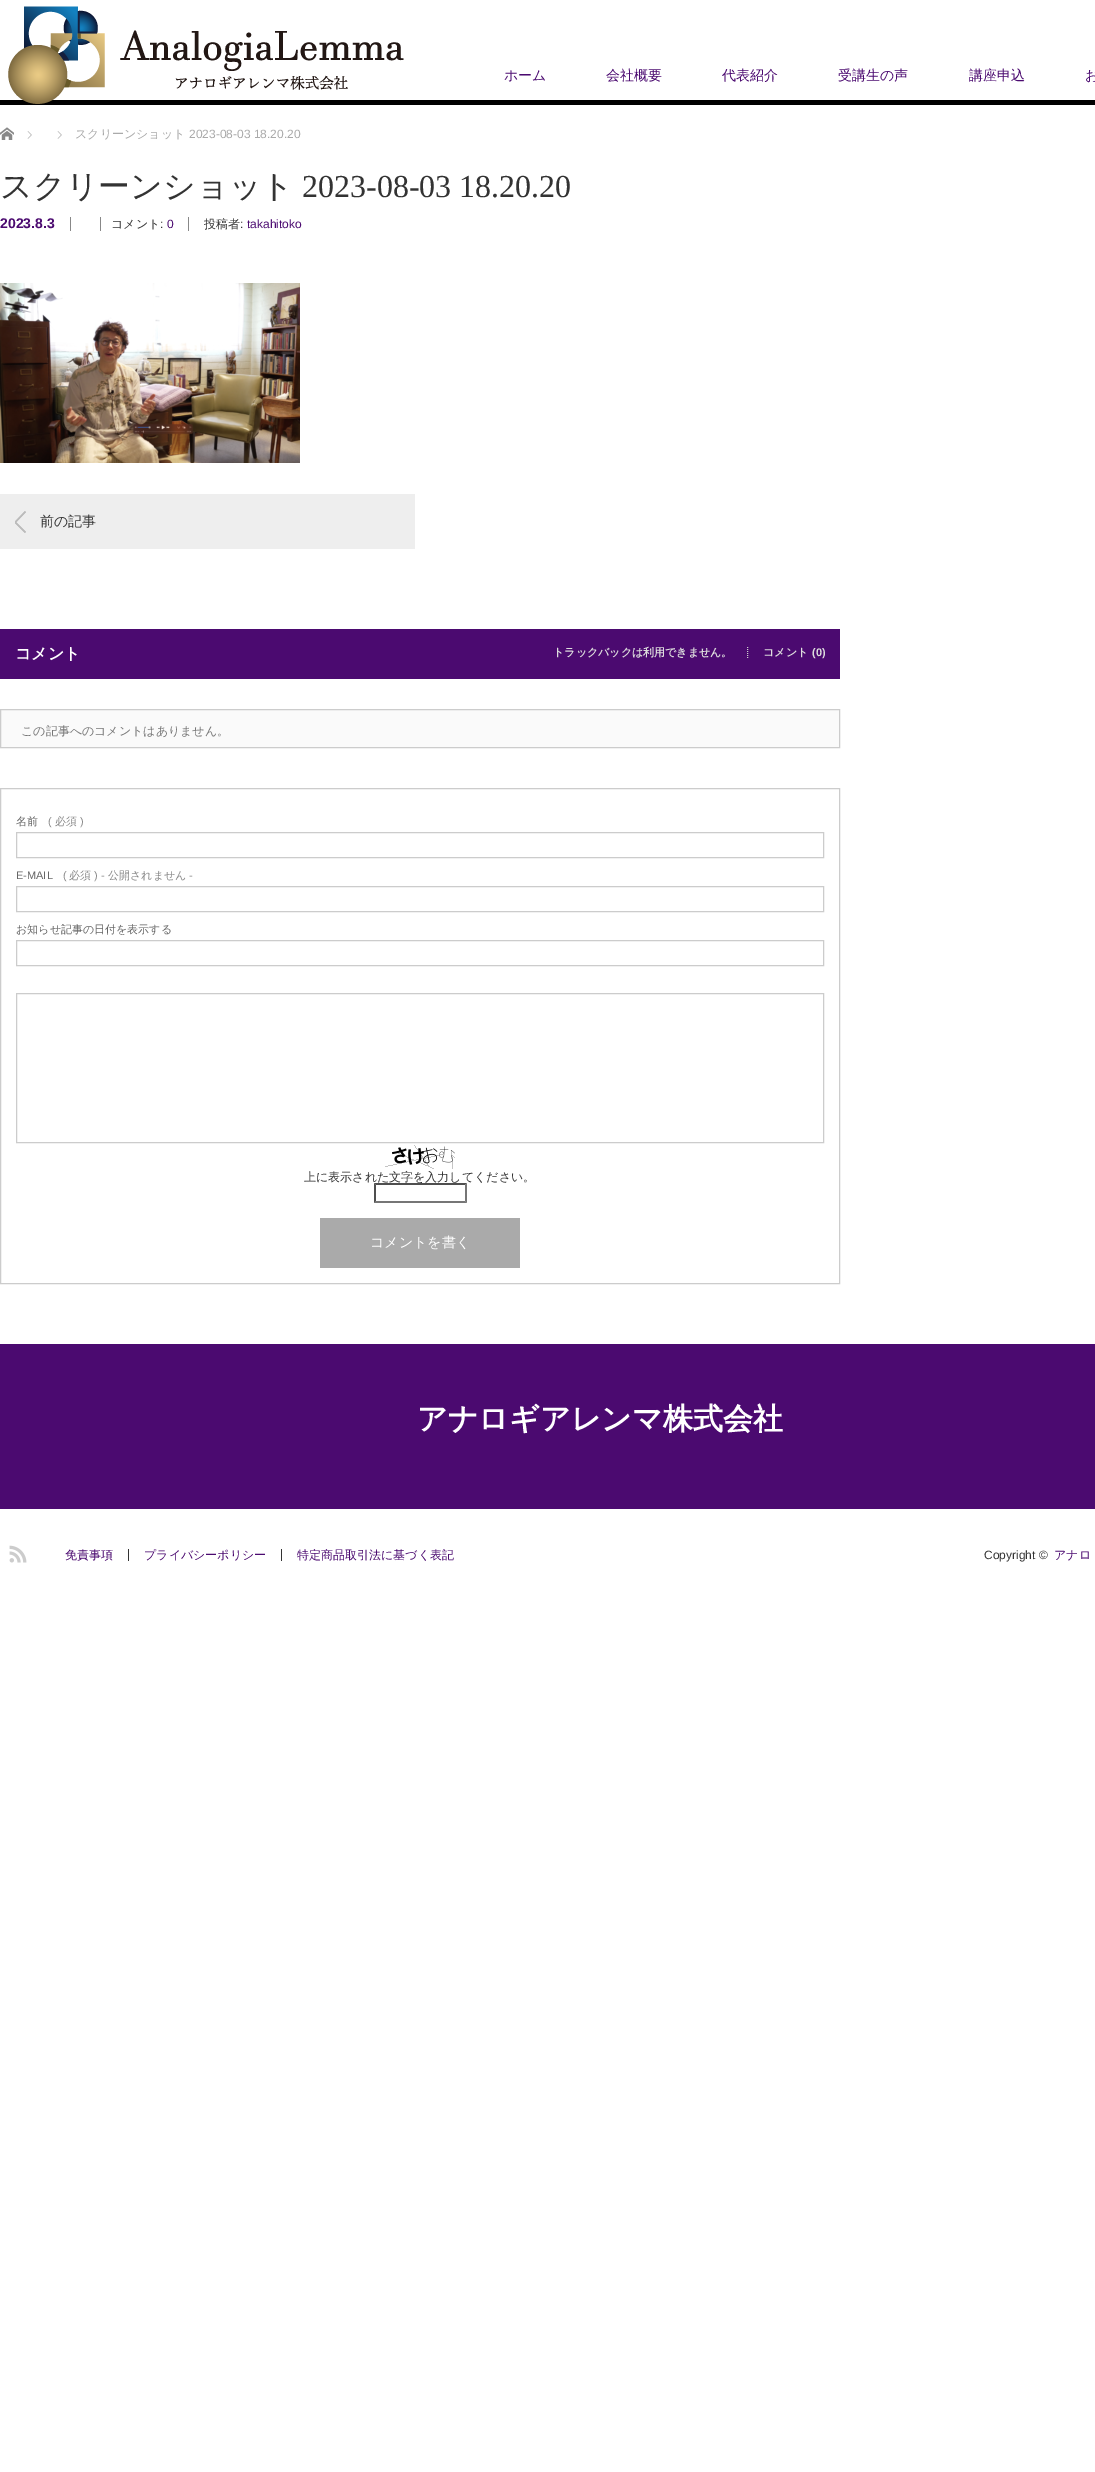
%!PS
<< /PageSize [1095 2472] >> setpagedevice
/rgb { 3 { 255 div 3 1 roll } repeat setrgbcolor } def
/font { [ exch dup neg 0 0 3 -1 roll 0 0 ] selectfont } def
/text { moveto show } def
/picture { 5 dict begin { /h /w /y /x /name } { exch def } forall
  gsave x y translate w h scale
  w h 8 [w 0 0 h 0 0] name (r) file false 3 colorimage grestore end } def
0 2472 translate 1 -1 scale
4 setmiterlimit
255 255 255 rgb
0 0 1095 2472 rectfill
0 0 0 rgb
0 100 1095 5 rectfill
(img_01.rgb) 8 6 396 98 picture
(img_02.rgb) 0 127 14 13 picture
(img_03.rgb) 27 131 5 8 picture
(img_03.rgb) 57 131 5 8 picture
136 136 136 rgb
70 217 1 14 rectfill
100 217 1 14 rectfill
188 217 1 14 rectfill
(img_04.rgb) 0 283 300 180 picture
238 238 238 rgb
0 494 415 55 rectfill
(img_05.rgb) 15 511 11 22 picture
75 10 112 rgb
0 629 840 50 rectfill
204 204 204 rgb
[1 1] 0 setdash
747.5 647 moveto 0 11 rlineto stroke
250 250 250 rgb
0.5 709.5 moveto 839 0 rlineto 0 38 rlineto -839 0 rlineto closepath gsave fill grestore
204 204 204 rgb
[] 0 setdash
stroke
0.5 788.5 839 495 rectstroke
16.5 832.5 807 25 rectstroke
16.5 886.5 807 25 rectstroke
16.5 940.5 807 25 rectstroke
16.5 993.5 807 149 rectstroke
(img_06.rgb) 385 1145 70 24 picture
79 79 79 rgb
374 1183 moveto 93 0 rlineto -2 2 rlineto -89 0 rlineto closepath fill
118 118 118 rgb
467 1183 moveto 0 20 rlineto -2 -2 rlineto 0 -16 rlineto closepath fill
467 1203 moveto -93 0 rlineto 2 -2 rlineto 89 0 rlineto closepath fill
79 79 79 rgb
374 1203 moveto 0 -20 rlineto 2 2 rlineto 0 16 rlineto closepath fill
170 170 170 rgb
320 1218 200 50 rectfill
75 10 112 rgb
0 1344 1095 165 rectfill
(img_07.rgb) 9 1545 18 18 picture
51 51 51 rgb
128 1549 1 12 rectfill
281 1549 1 12 rectfill
/WenQuanYiZenHei-Medium 14 font
75 10 112 rgb
(ホーム) 504 80 text
(会社概要) 606 80 text
(代表紹介) 722 80 text
(受講生の声) 838 80 text
(講座申込) 969 80 text
(お) 1085 80 text
/WenQuanYiZenHei-Medium 12 font
170 170 170 rgb
(スクリーンショット) 75 138 text
/LiberationSans-Regular 12 font
(2023-08-03 18.20.20) 189 138 text
/WenQuanYiZenHei-Medium 32 font
51 51 51 rgb
(スクリーンショット) 0 197 text
/LiberationSerif-Regular 32 font
(2023-08-03 18.20.20) 302 197 text
/LiberationSans-Bold 14 font
75 10 112 rgb
(2023.8.3) 0 228 text
/WenQuanYiZenHei-Medium 12 font
51 51 51 rgb
(コメント) 111 228 text
/LiberationSans-Regular 12 font
(:) 160 228 text
75 10 112 rgb
(0) 167 228 text
/WenQuanYiZenHei-Medium 12 font
51 51 51 rgb
(投稿者) 204 228 text
/LiberationSans-Regular 12 font
(:) 240 228 text
75 10 112 rgb
(takahitoko) 247 228 text
/WenQuanYiZenHei-Medium 14 font
51 51 51 rgb
(前の記事) 40 526 text
/WenQuanYiZenHei-Bold 16 font
255 255 255 rgb
(コメント) 15 659 text
/WenQuanYiZenHei-Bold 11 font
221 221 221 rgb
(トラックバックは利用できません。) 553 656 text
(コメント) 763 656 text
/LiberationSans-Bold 11 font
(\(0\)) 812 656 text
/WenQuanYiZenHei-Medium 12 font
119 119 119 rgb
(この記事へのコメントはありません。) 21 735 text
/WenQuanYiZenHei-Medium 11 font
102 102 102 rgb
(名前) 16 825 text
/LiberationSans-Regular 11 font
136 136 136 rgb
(\() 48 825 text
/WenQuanYiZenHei-Medium 11 font
(必須) 55 825 text
/LiberationSans-Regular 11 font
(\)) 80 825 text
102 102 102 rgb
(E-MAIL) 16 879 text
136 136 136 rgb
(\() 63 879 text
/WenQuanYiZenHei-Medium 11 font
(必須) 69 879 text
/LiberationSans-Regular 11 font
(\) -) 94 879 text
/WenQuanYiZenHei-Medium 11 font
(公開されません) 108 879 text
/LiberationSans-Regular 11 font
(-) 189 879 text
/WenQuanYiZenHei-Medium 11 font
102 102 102 rgb
(お知らせ記事の日付を表示する) 16 933 text
/WenQuanYiZenHei-Medium 12 font
51 51 51 rgb
(上に表示された文字を入力してください。) 304 1181 text
/WenQuanYiZenHei-Medium 14 font
255 255 255 rgb
(コメントを書く) 370 1247 text
/WenQuanYiZenHei-Bold 30 font
(アナロギアレンマ株式会社) 417 1429 text
/WenQuanYiZenHei-Medium 12 font
75 10 112 rgb
(免責事項) 65 1559 text
(プライバシーポリシー) 144 1559 text
(特定商品取引法に基づく表記) 297 1559 text
/LiberationSans-Regular 12 font
51 51 51 rgb
(Copyright ©) 984 1559 text
/WenQuanYiZenHei-Medium 12 font
75 10 112 rgb
(アナロ) 1054 1559 text
showpage
